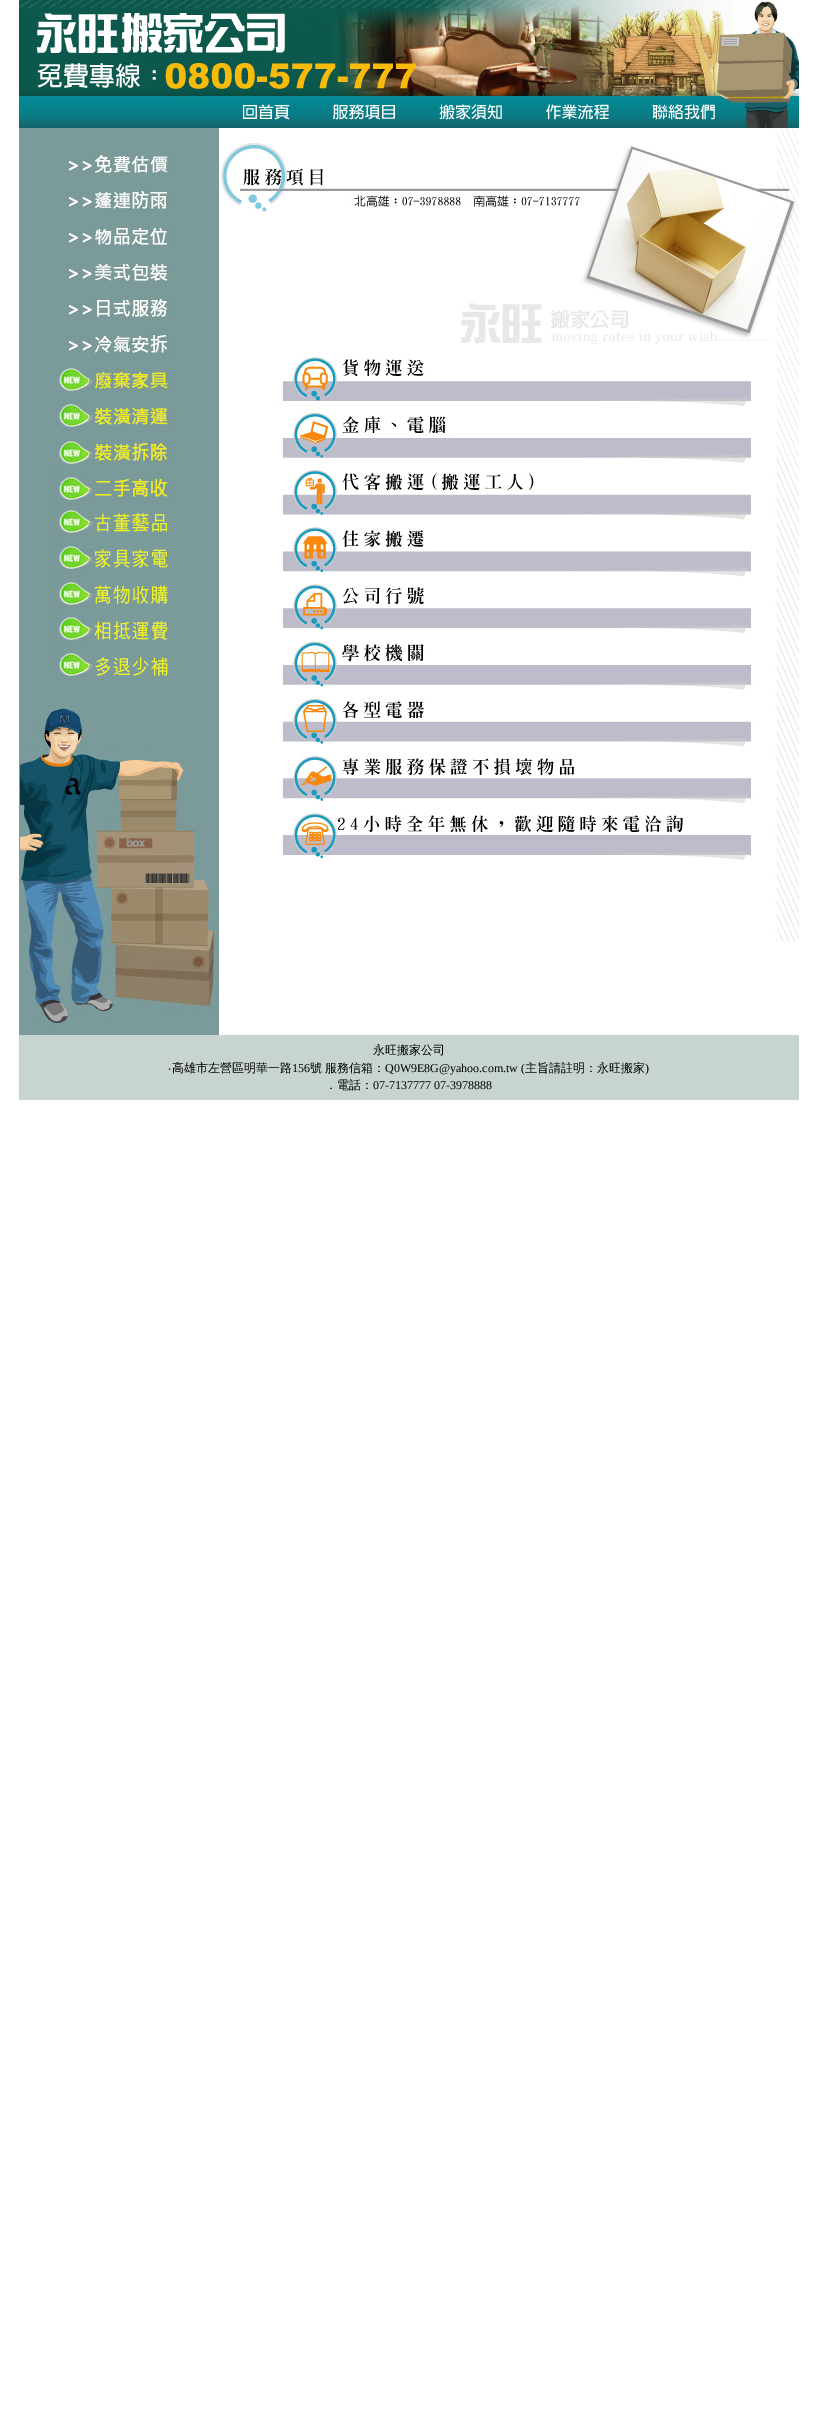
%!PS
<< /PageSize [817 2432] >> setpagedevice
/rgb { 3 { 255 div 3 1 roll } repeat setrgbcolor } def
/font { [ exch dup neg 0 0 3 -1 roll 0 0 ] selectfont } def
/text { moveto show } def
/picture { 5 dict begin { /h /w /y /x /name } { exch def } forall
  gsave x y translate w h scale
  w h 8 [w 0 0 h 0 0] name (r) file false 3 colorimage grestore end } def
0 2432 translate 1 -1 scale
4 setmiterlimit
255 255 255 rgb
0 0 817 2432 rectfill
(img_01.rgb) 19 0 780 95 picture
(img_02.rgb) 19 95 200 33 picture
(img_03.rgb) 219 95 104 33 picture
(img_04.rgb) 323 95 97 33 picture
(img_05.rgb) 420 95 104 33 picture
(img_06.rgb) 524 95 104 33 picture
(img_07.rgb) 628 95 171 33 picture
(img_08.rgb) 19 128 200 907 picture
(img_09.rgb) 221 128 578 813 picture
200 212 208 rgb
19 1035 780 65 rectfill
/WenQuanYiZenHei-Medium 12 font
0 0 0 rgb
(永旺搬家公司) 373 1054 text
/NotoSans-Regular 12 font
(‧) 168 1072 text
/WenQuanYiZenHei-Medium 12 font
(高雄市左營區明華一路) 172 1072 text
/LiberationSerif-Regular 12 font
(156) 292 1072 text
/WenQuanYiZenHei-Medium 12 font
(號) 310 1072 text
(服務信箱：) 325 1072 text
/LiberationSerif-Regular 12 font
(Q0W9E8G@yahoo.com.tw \() 385 1072 text
/WenQuanYiZenHei-Medium 12 font
(主旨請註明：永旺搬家) 525 1072 text
/LiberationSerif-Regular 12 font
(\)) 645 1072 text
/WenQuanYiZenHei-Medium 12 font
(．電話：) 325 1089 text
/LiberationSerif-Regular 12 font
(07-7137777 07-3978888) 373 1089 text
showpage
